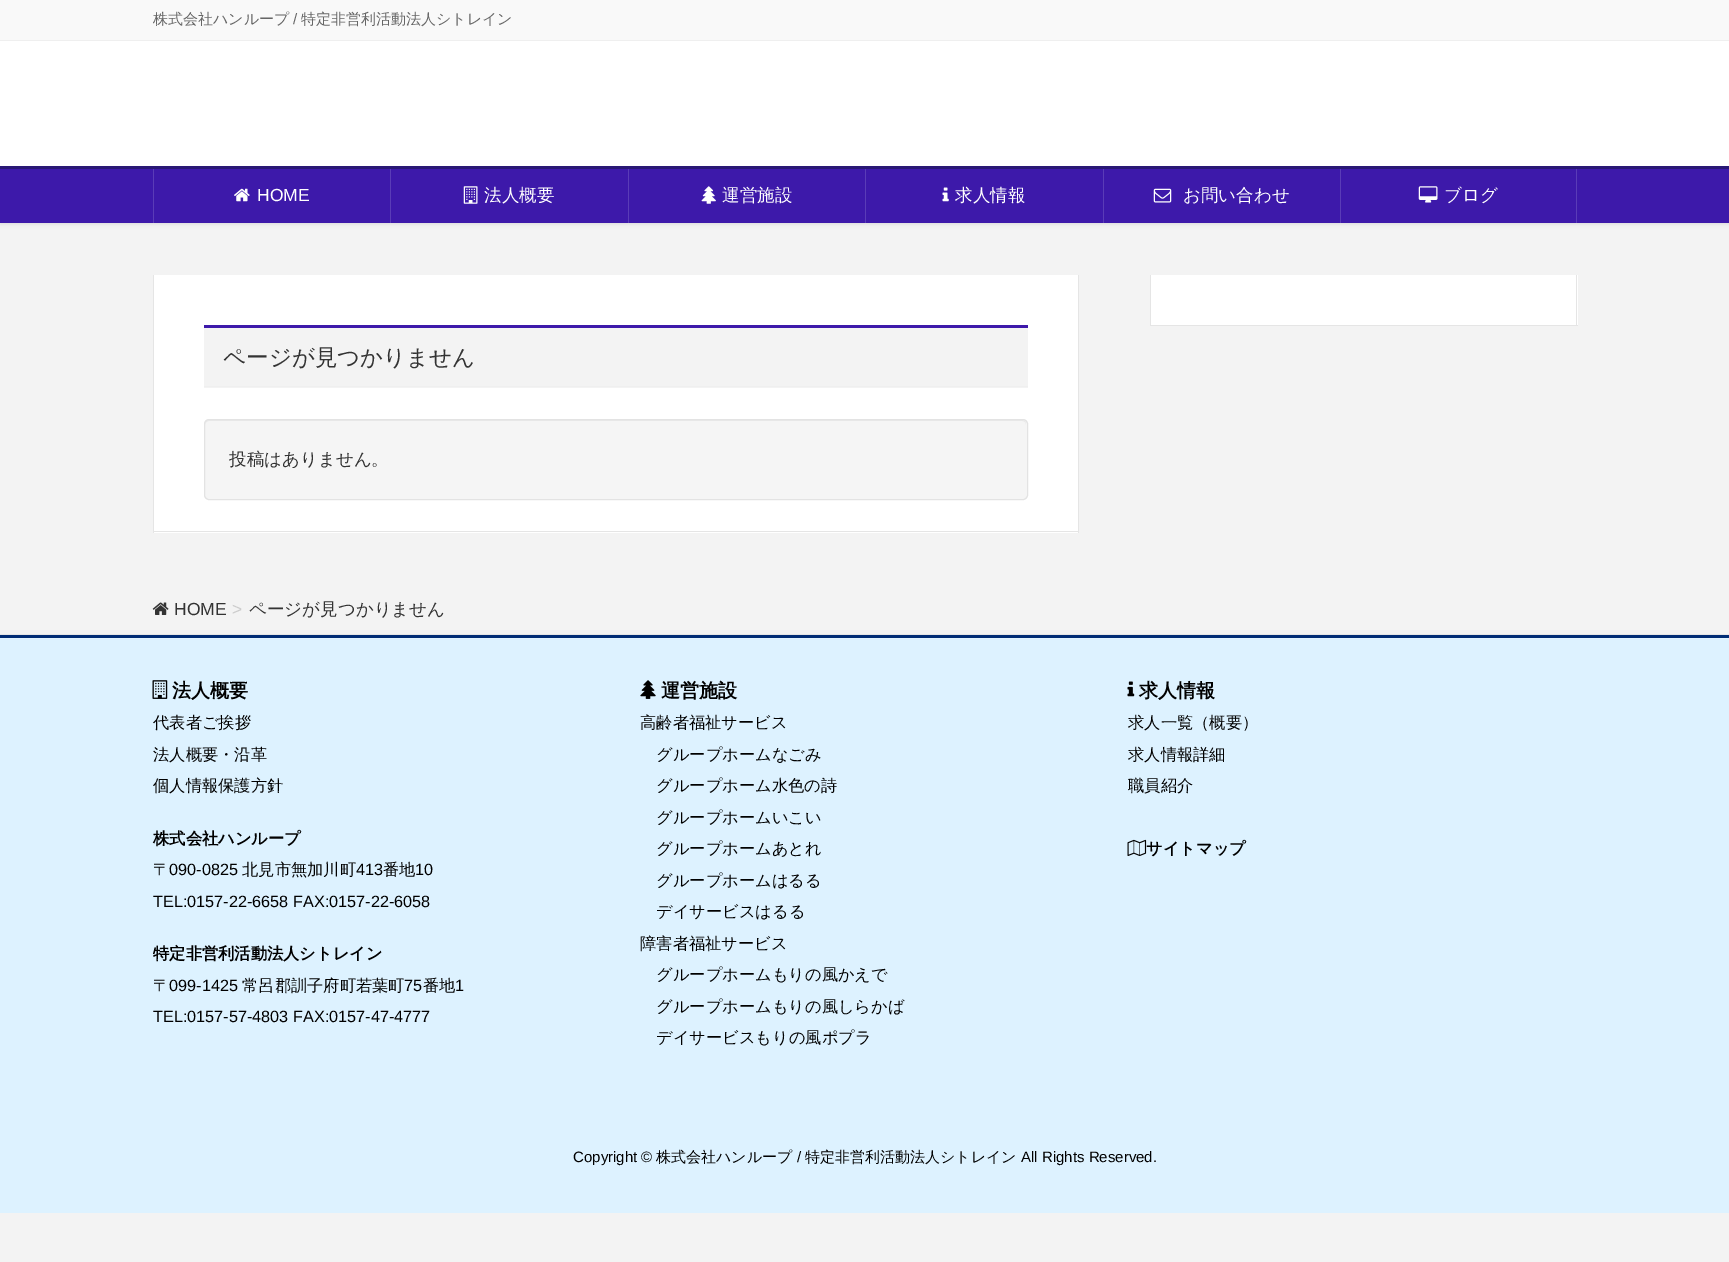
%!PS
<< /PageSize [1729 1262] /PageUsesTransparency true >> setpagedevice
/rgb { 3 { 255 div 3 1 roll } repeat setrgbcolor } def
/font { [ exch dup neg 0 0 3 -1 roll 0 0 ] selectfont } def
/text { moveto show } def
/alpha { dup .setfillconstantalpha .setstrokeconstantalpha } def
/roundrect { 5 dict begin { /r /h /w /y /x } { exch def } forall
  x r add y moveto x w add y 2 copy h add r arct x w add y h add x 1 index r arct
  x y h add x y r arct x y 2 copy exch w add exch r arct closepath end } def
/shadow { 12 dict begin { /a /b /q /h /w /y /x } { exch def } forall gsave /was 0 def
  9 -2 -9 { dup b mul 4 div /e exch def 1 sub .425 mul 2.718 exch exp 1 add a .99 .min exch div /now exch def
    1 1 now sub 1 was sub div sub alpha /was now def
    w h .min e 2 mul add 0 gt { x e sub y e sub w e 2 mul add h e 2 mul add
      q e add b .6 mul add w h .min 2 div e add .min 0 .max roundrect fill } if } for grestore end } def
/picture { 5 dict begin { /h /w /y /x /name } { exch def } forall
  gsave x y translate w h scale
  w h 8 [w 0 0 h 0 0] name (r) file false 3 colorimage grestore end } def
0 .pushpdf14devicefilter
0 1262 translate 1 -1 scale
4 setmiterlimit
243 243 243 rgb
0 0 1729 1262 rectfill
0 0 0 rgb
0 1 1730 223 0 2 0.1 shadow
255 255 255 rgb
0 41 1729 125 rectfill
249 249 249 rgb
0 0 1729 40 rectfill
239 239 239 rgb
0 40 1729 1 rectfill
61 25 170 rgb
0 169 1729 54 rectfill
41 24 117 rgb
0 166 1729 3 rectfill
90 60 183 rgb
153 169 1 54 rectfill
(img_01.rgb) 234 188 16 14 picture
390 169 1 54 rectfill
(img_02.rgb) 463 186 15 18 picture
628 169 1 54 rectfill
(img_03.rgb) 701 186 15 18 picture
865 169 1 54 rectfill
(img_04.rgb) 942 187 7 15 picture
1103 169 1 54 rectfill
(img_05.rgb) 1153 188 19 15 picture
1576 169 1 54 rectfill
1340 169 1 54 rectfill
(img_06.rgb) 1418 186 20 17 picture
255 255 255 rgb
1151 275 427 50 rectfill
229 229 229 rgb
1576 275 1 51 rectfill
1150 325 428 1 rectfill
1150 275 1 51 rectfill
255 255 255 rgb
154 275 924 258 rectfill
229 229 229 rgb
1078 275 1 258 rectfill
153 531 926 1 rectfill
153 275 1 258 rectfill
243 243 243 rgb
204 328 824 60 rectfill
61 25 170 rgb
204 325 824 3 rectfill
239 239 239 rgb
204 386 824 1 rectfill
245 245 245 rgb
204 419 824 81 5 roundrect fill
233 233 233 rgb
209 421 moveto 813 0 rlineto 3 0 4 2 4 4 rcurveto 0 -3 -1 -5 -4 -5 rcurveto -813 0 rlineto -3 0 -4 2 -4 5 rcurveto 0 -2 2 -4 4 -4 rcurveto closepath fill
227 227 227 rgb
204.5 419.5 823 80 4.5 roundrect stroke
229 229 229 rgb
0 634 1729 1 rectfill
(img_07.rgb) 152 602 17 13 picture
221 242 255 rgb
0 639 1729 574 rectfill
0 44 117 rgb
0 635 1729 3 rectfill
226 244 255 rgb
0 638 1729 1 rectfill
(img_08.rgb) 152 680 16 19 picture
(img_09.rgb) 640 680 16 19 picture
(img_10.rgb) 1127 681 8 16 picture
(img_11.rgb) 1127 839 20 17 picture
/WenQuanYiZenHei-Medium 15 font
102 102 102 rgb
(株式会社ハンループ) 153 24 text
/LiberationSans-Regular 15 font
(/) 293 24 text
/WenQuanYiZenHei-Medium 15 font
(特定非営利活動法人シトレイン) 301 24 text
/LiberationSans-Regular 17.5 font
255 255 255 rgb
(HOME) 257 201 text
/WenQuanYiZenHei-Medium 17.5 font
(法人概要) 484 201 text
(運営施設) 722 201 text
(求人情報) 955 201 text
(お問い合わせ) 1183 201 text
(ブログ) 1444 201 text
/WenQuanYiZenHei-Medium 22.5 font
51 51 51 rgb
(ページが見つかりません) 223 365 text
/WenQuanYiZenHei-Medium 17.5 font
(投稿はありません。) 229 465 text
/LiberationSans-Regular 17.5 font
(HOME) 174 615 text
204 204 204 rgb
(>) 232 615 text
/WenQuanYiZenHei-Medium 17.5 font
51 51 51 rgb
(ページが見つかりません) 249 615 text
/WenQuanYiZenHei-Bold 19 font
0 0 0 rgb
(法人概要) 172 697 text
/WenQuanYiZenHei-Medium 16.25 font
(代表者ご挨拶) 153 728 text
(法人概要・沿革) 153 760 text
(個人情報保護方針) 153 791 text
/WenQuanYiZenHei-Bold 16.25 font
(株式会社ハンループ) 153 844 text
/WenQuanYiZenHei-Medium 16.25 font
(〒) 153 875 text
/LiberationSans-Regular 16.25 font
(090-0825) 169 875 text
/WenQuanYiZenHei-Medium 16.25 font
(北見市無加川町) 242 875 text
/LiberationSans-Regular 16.25 font
(413) 356 875 text
/WenQuanYiZenHei-Medium 16.25 font
(番地) 383 875 text
/LiberationSans-Regular 16.25 font
(10) 415 875 text
(TEL:0157-22-6658 FAX:0157-22-6058) 153 907 text
/WenQuanYiZenHei-Bold 16.25 font
(特定非営利活動法人シトレイン) 153 959 text
/WenQuanYiZenHei-Medium 16.25 font
(〒) 153 991 text
/LiberationSans-Regular 16.25 font
(099-1425) 169 991 text
/WenQuanYiZenHei-Medium 16.25 font
(常呂郡訓子府町若葉町) 242 991 text
/LiberationSans-Regular 16.25 font
(75) 404 991 text
/WenQuanYiZenHei-Medium 16.25 font
(番地) 423 991 text
/LiberationSans-Regular 16.25 font
(1) 455 991 text
(TEL:0157-57-4803 FAX:0157-47-4777) 153 1022 text
/WenQuanYiZenHei-Bold 19 font
(運営施設) 661 697 text
/WenQuanYiZenHei-Medium 16.25 font
(高齢者福祉サービス) 640 728 text
(グループホームなごみ) 656 760 text
(グループホーム水色の詩) 656 791 text
(グループホームいこい) 656 823 text
(グループホームあとれ) 656 854 text
(グループホームはるる) 656 886 text
(デイサービスはるる) 656 917 text
(障害者福祉サービス) 640 949 text
(グループホームもりの風かえで) 656 980 text
(グループホームもりの風しらかば) 656 1012 text
(デイサービスもりの風ポプラ) 656 1043 text
/WenQuanYiZenHei-Bold 19 font
(求人情報) 1139 697 text
/WenQuanYiZenHei-Medium 16.25 font
(求人一覧（概要）) 1128 728 text
(求人情報詳細) 1128 760 text
(職員紹介) 1128 791 text
/WenQuanYiZenHei-Bold 16.25 font
(サイトマップ) 1146 854 text
/LiberationSans-Regular 15 font
(Copyright ©) 573 1162 text
/WenQuanYiZenHei-Medium 15 font
(株式会社ハンループ) 656 1162 text
/LiberationSans-Regular 15 font
(/) 797 1162 text
/WenQuanYiZenHei-Medium 15 font
(特定非営利活動法人シトレイン) 805 1162 text
/LiberationSans-Regular 15 font
(All Rights Reserved.) 1021 1162 text
.poppdf14devicefilter showpage
